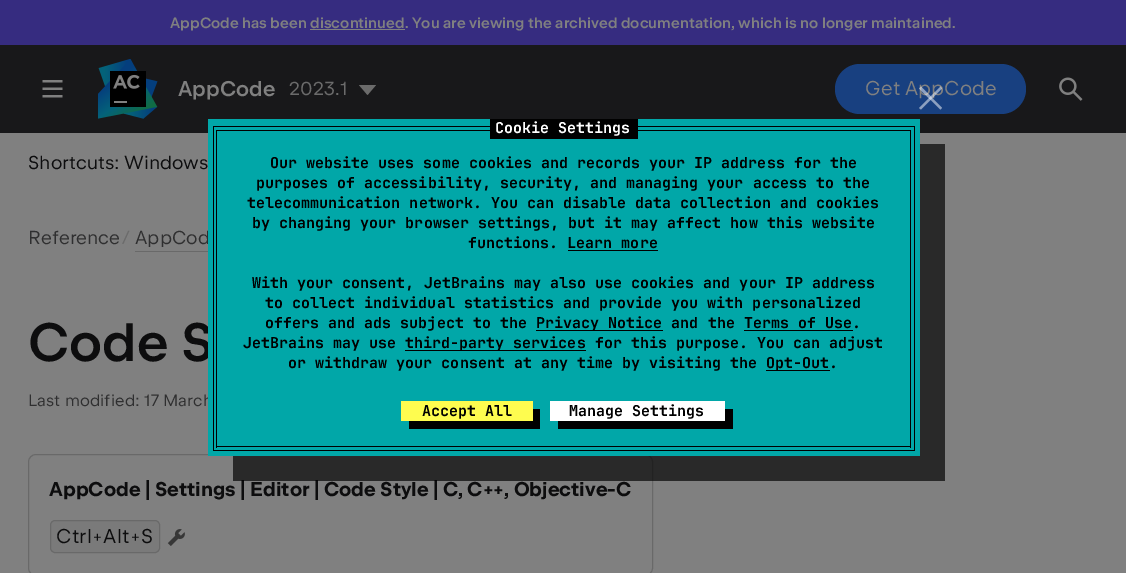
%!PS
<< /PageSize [1126 573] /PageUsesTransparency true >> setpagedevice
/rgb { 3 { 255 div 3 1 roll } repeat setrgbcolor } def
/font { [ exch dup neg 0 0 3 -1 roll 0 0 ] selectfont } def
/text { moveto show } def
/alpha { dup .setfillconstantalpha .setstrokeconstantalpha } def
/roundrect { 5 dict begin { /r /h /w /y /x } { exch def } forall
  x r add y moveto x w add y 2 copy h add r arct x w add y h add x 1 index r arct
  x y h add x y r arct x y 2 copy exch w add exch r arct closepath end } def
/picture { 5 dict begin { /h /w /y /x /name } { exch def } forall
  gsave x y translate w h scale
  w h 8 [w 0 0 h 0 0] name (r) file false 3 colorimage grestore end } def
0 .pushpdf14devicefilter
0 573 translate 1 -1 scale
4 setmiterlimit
128 128 128 rgb
0 0 1126 573 rectfill
54 44 128 rgb
0 0 1126 45 rectfill
128 128 128 rgb
310 29 95 1 rectfill
24 24 26 rgb
0 45 1126 88 rectfill
(img_01.rgb) 42 80 21 18 picture
(img_02.rgb) 98 59 60 60 picture
107 107 107 rgb
367.5 95 moveto -8.5 -10 rlineto 17 0 rlineto closepath fill
24 64 128 rgb
835 64 191 50 25 roundrect fill
(img_03.rgb) 1059 77 24 24 picture
105 105 105 rgb
135 251 73 1 rectfill
28.5 454.5 624 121 7.5 roundrect stroke
122 122 122 rgb
50.5 520.5 109 32 4.5 roundrect gsave fill grestore
105 105 105 rgb
stroke
(img_04.rgb) 167 529 18 17 picture
/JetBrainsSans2-SemiBold 15 font
128 128 128 rgb
170 28 moveto 0.03 0 (AppCode has been discontinued. You are viewing the archived documentation, which is no longer maintained.) ashow
/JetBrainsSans-Medium 21.25 font
(AppCode) 178 96 text
/JetBrainsSans-Regular 18.75 font
107 107 107 rgb
289 95 moveto 0.03 0 (2023.1) ashow
/JetBrainsSans-Regular 20 font
128 128 128 rgb
865 95 moveto 0.03 0 (Get AppCode) ashow
/JetBrainsSans-Regular 18.75 font
13 13 14 rgb
28 169 moveto 0.03 0 (Shortcuts:) ashow
124 169 moveto 0.03 0 (Windows) ashow
47 47 48 rgb
28 244 moveto 0.03 0 (Reference) ashow
107 107 107 rgb
122 244 moveto 0.03 0 (/) ashow
47 47 48 rgb
135 244 moveto 0.03 0 (AppCod) ashow
/JetBrainsSans-Medium 54 font
13 13 14 rgb
(Code S) 28 361 text
/JetBrainsSans-Regular 16.25 font
47 47 48 rgb
28 406 moveto 0.1 0 (Last modified: 17 March) ashow
/JetBrainsSans-SemiBold 20 font
13 13 14 rgb
49 496 moveto 0.03 0 (AppCode | Settings | Editor | Code Style | C, C++, Objective-C) ashow
/JetBrainsSans-Regular 20 font
56 543 moveto 0.25 0 (Ctrl+Alt+S) ashow
0.68 alpha
0 0 0 rgb
233 456 moveto 0 25 rlineto 712 0 rlineto 0 -337 rlineto -25 0 rlineto 0 312 rlineto closepath fill
1 alpha
1 167 168 rgb
208 119 712 337 rectfill
0.5 alpha
255 255 255 rgb
919 108 moveto 21.5 -21.5 rlineto 1.5 2 rlineto -21 21 rlineto closepath fill
921 86.5 moveto 21 21.5 rlineto -1.5 1.5 rlineto -21.5 -21 rlineto closepath fill
1 alpha
0 0 0 rgb
216 130 695 1 rectfill
910 130 1 318 rectfill
216 130 1 271 rectfill
213 126 702 1 rectfill
490 119 148 20 rectfill
/JetBrainsMono-Bold 15 font
255 255 255 rgb
495 133 moveto 0.03 0 (Cookie Settings) ashow
0 0 0 rgb
914 126 1 325 rectfill
213 126 1 274 rectfill
270 168 moveto 0.03 0 (Our website uses some cookies and records your IP address for the) ashow
256 188 moveto 0.03 0 (purposes of accessibility, security, and managing your access to the) ashow
247 208 moveto 0.03 0 (telecommunication network. You can disable data collection and cookies) ashow
252 228 moveto 0.03 0 (by changing your browser settings, but it may affect how this website) ashow
468 248 moveto 0.03 0 (functions. Learn more) ashow
568 250 90 1 rectfill
252 288 moveto 0.03 0 (With your consent, JetBrains may also use cookies and your IP address) ashow
265 308 moveto 0.03 0 (to collect individual statistics and provide you with personalized) ashow
265 328 moveto 0.03 0 (offers and ads subject to the) ashow
536 330 127 1 rectfill
536 328 moveto 0.03 0 (Privacy Notice and the Terms of Use.) ashow
744 330 109 1 rectfill
243 348 moveto 0.03 0 (JetBrains may use) ashow
405 350 181 1 rectfill
405 348 moveto 0.03 0 (third-party services for this purpose. You can adjust) ashow
288 368 moveto 0.03 0 (or withdraw your consent at any time by visiting the) ashow
766 370 64 1 rectfill
766 368 moveto 0.03 0 (Opt-Out.) ashow
216 446 695 1 rectfill
216 401 1 47 rectfill
213 450 702 1 rectfill
213 400 1 51 rectfill
409 421 moveto 0 8 rlineto 131 0 rlineto 0 -20 rlineto -8 0 rlineto 0 12 rlineto closepath fill
254 252 79 rgb
401 401 132 20 rectfill
0 0 0 rgb
(Accept All) 422 416 text
558 421 moveto 0 8 rlineto 175 0 rlineto 0 -20 rlineto -8 0 rlineto 0 12 rlineto closepath fill
255 255 255 rgb
550 401 175 20 rectfill
0 0 0 rgb
(Manage Settings) 569 416 text
.poppdf14devicefilter showpage
